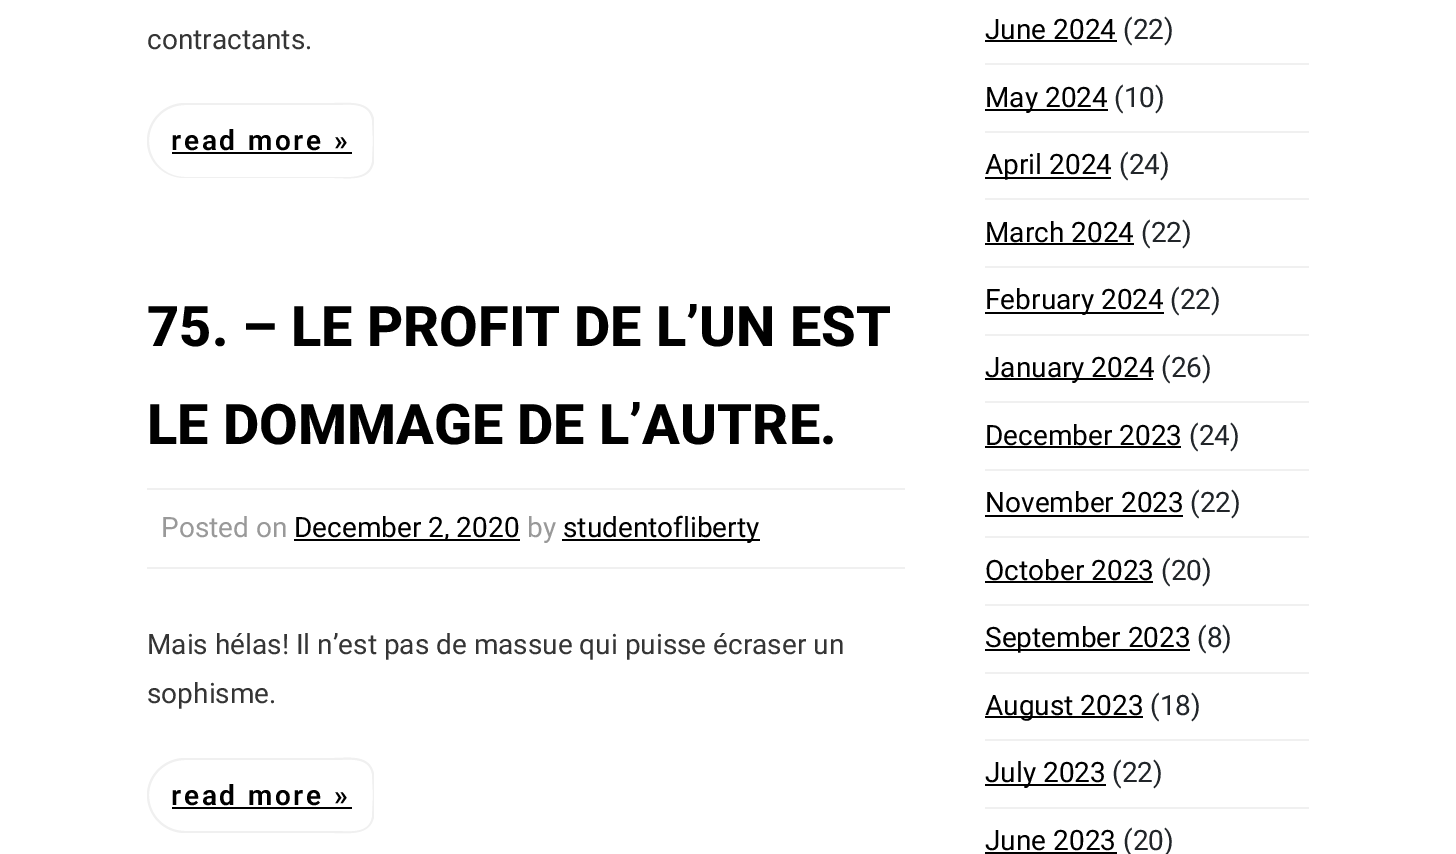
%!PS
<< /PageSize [1456 854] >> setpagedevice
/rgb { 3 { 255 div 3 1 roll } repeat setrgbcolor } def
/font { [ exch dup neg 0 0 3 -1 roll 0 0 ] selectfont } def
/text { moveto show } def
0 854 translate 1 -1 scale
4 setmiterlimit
255 255 255 rgb
0 0 1456 854 rectfill
240 240 240 rgb
185 103 moveto 149 0 rlineto 0 75 rlineto -149 0 rlineto -21 0 -38 -16 -38 -37 rcurveto 0 -21 17 -38 38 -38 rcurveto closepath 185 105 moveto 149 0 rlineto 0 72 rlineto -149 0 rlineto -20 0 -36 -16 -36 -36 rcurveto 0 -20 16 -36 36 -36 rcurveto closepath eofill
334 103 moveto 15 0 36 -3 40 16 rcurveto 0 22 rlineto 0 21 rlineto -4 20 -25 16 -40 16 rcurveto closepath 334 105 moveto 14 0 35 -4 38 15 rcurveto 1 21 rlineto -1 21 rlineto -3 18 -24 15 -38 15 rcurveto closepath eofill
0 0 0 rgb
172 152 180 2 rectfill
240 240 240 rgb
147 488 758 2 rectfill
147 567 758 2 rectfill
0 0 0 rgb
294 539 226 2 rectfill
562 539 198 2 rectfill
240 240 240 rgb
185 758 moveto 149 0 rlineto 0 75 rlineto -149 0 rlineto -21 0 -38 -17 -38 -38 rcurveto 0 -20 17 -37 38 -37 rcurveto closepath 185 760 moveto 149 0 rlineto 0 71 rlineto -149 0 rlineto -20 0 -36 -16 -36 -36 rcurveto 0 -19 16 -35 36 -35 rcurveto closepath eofill
334 758 moveto 15 0 36 -4 40 16 rcurveto 0 21 rlineto 0 22 rlineto -4 19 -25 16 -40 16 rcurveto closepath 334 760 moveto 14 0 35 -4 38 14 rcurveto 1 21 rlineto -1 22 rlineto -3 18 -24 14 -38 14 rcurveto closepath eofill
0 0 0 rgb
172 807 180 2 rectfill
240 240 240 rgb
985 63 324 2 rectfill
0 0 0 rgb
985 40 132 2 rectfill
240 240 240 rgb
985 131 324 2 rectfill
0 0 0 rgb
985 109 123 2 rectfill
240 240 240 rgb
985 198 324 2 rectfill
0 0 0 rgb
985 177 126 2 rectfill
240 240 240 rgb
985 266 324 2 rectfill
0 0 0 rgb
985 243 149 2 rectfill
240 240 240 rgb
985 334 324 2 rectfill
0 0 0 rgb
985 312 179 2 rectfill
240 240 240 rgb
985 401 324 2 rectfill
0 0 0 rgb
985 378 168 2 rectfill
240 240 240 rgb
985 469 324 2 rectfill
0 0 0 rgb
985 446 196 2 rectfill
240 240 240 rgb
985 536 324 2 rectfill
0 0 0 rgb
985 515 198 2 rectfill
240 240 240 rgb
985 604 324 2 rectfill
0 0 0 rgb
985 581 168 2 rectfill
240 240 240 rgb
985 672 324 2 rectfill
0 0 0 rgb
985 649 205 2 rectfill
240 240 240 rgb
985 739 324 2 rectfill
0 0 0 rgb
985 716 158 2 rectfill
240 240 240 rgb
985 807 324 2 rectfill
0 0 0 rgb
985 784 121 2 rectfill
985 852 132 2 rectfill
/Roboto-Regular 28 font
53 53 53 rgb
(contractants.) 147 49 text
/Roboto-SemiBold 28 font
0 0 0 rgb
171 150 moveto 2.75 0 (read more ») ashow
/Roboto-ExtraBold 56 font
(75. – LE PROFIT DE L’UN EST) 147 346 text
(LE DOMMAGE DE L’AUTRE.) 147 444 text
/Roboto-Regular 28 font
153 153 153 rgb
(Posted on) 161 537 text
0 0 0 rgb
(December 2, 2020) 294 537 text
153 153 153 rgb
(by) 527 537 text
0 0 0 rgb
(studentofliberty) 563 537 text
53 53 53 rgb
(Mais hélas! Il n’est pas de massue qui puisse écraser un) 147 654 text
(sophisme.) 147 703 text
/Roboto-SemiBold 28 font
0 0 0 rgb
171 805 moveto 2.75 0 (read more ») ashow
/Roboto-Regular 28 font
(June 2024) 985 39 text
33 37 41 rgb
(\(22\)) 1123 39 text
0 0 0 rgb
(May 2024) 985 107 text
33 37 41 rgb
(\(10\)) 1114 107 text
0 0 0 rgb
(April 2024) 985 174 text
33 37 41 rgb
(\(24\)) 1119 174 text
0 0 0 rgb
(March 2024) 985 242 text
33 37 41 rgb
(\(22\)) 1141 242 text
0 0 0 rgb
(February 2024) 985 309 text
33 37 41 rgb
(\(22\)) 1170 309 text
0 0 0 rgb
(January 2024) 985 377 text
33 37 41 rgb
(\(26\)) 1161 377 text
0 0 0 rgb
(December 2023) 985 445 text
33 37 41 rgb
(\(24\)) 1189 445 text
0 0 0 rgb
(November 2023) 985 512 text
33 37 41 rgb
(\(22\)) 1190 512 text
0 0 0 rgb
(October 2023) 985 580 text
33 37 41 rgb
(\(20\)) 1161 580 text
0 0 0 rgb
(September 2023) 985 647 text
33 37 41 rgb
(\(8\)) 1197 647 text
0 0 0 rgb
(August 2023) 985 715 text
33 37 41 rgb
(\(18\)) 1150 715 text
0 0 0 rgb
(July 2023) 985 782 text
33 37 41 rgb
(\(22\)) 1112 782 text
0 0 0 rgb
(June 2023) 985 850 text
33 37 41 rgb
(\(20\)) 1123 850 text
showpage
